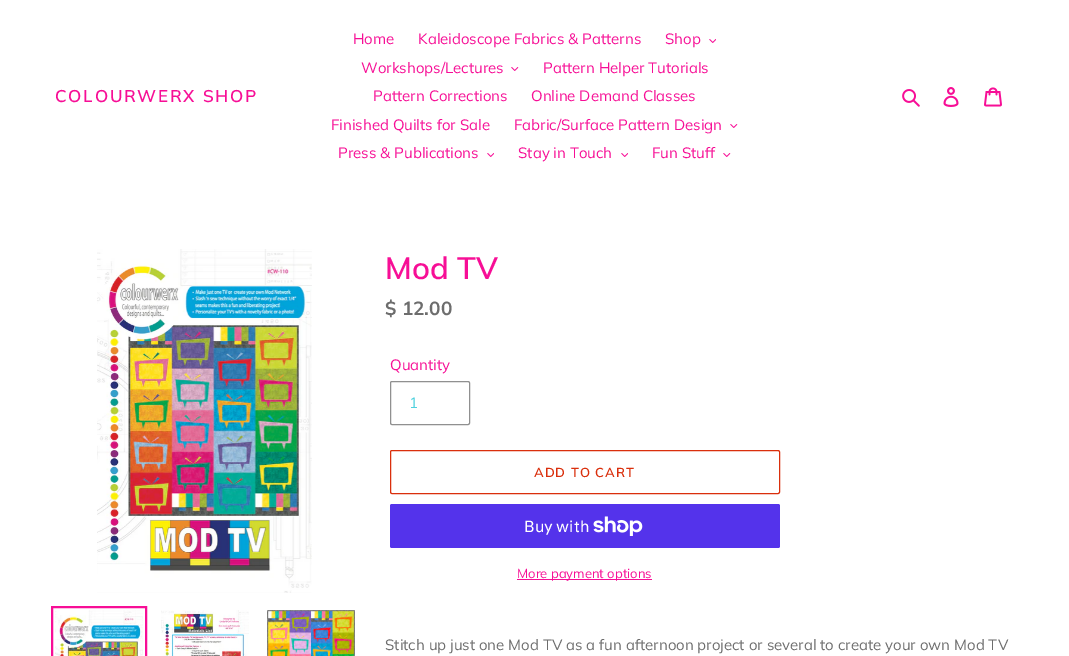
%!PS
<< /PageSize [1069 656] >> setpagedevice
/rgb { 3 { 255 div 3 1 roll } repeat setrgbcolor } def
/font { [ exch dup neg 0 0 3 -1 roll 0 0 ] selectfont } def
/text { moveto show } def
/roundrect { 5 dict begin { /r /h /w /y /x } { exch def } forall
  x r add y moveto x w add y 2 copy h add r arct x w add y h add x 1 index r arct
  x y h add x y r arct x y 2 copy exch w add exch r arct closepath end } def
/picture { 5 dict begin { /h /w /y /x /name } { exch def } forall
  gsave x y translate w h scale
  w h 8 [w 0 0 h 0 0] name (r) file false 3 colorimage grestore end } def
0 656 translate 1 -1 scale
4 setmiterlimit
255 255 255 rgb
0 0 1069 656 rectfill
(img_01.rgb) 709 39 7 4 picture
(img_02.rgb) 511 67 8 4 picture
(img_02.rgb) 730 124 8 4 picture
(img_01.rgb) 487 153 7 4 picture
(img_01.rgb) 621 153 7 4 picture
(img_02.rgb) 723 153 8 4 picture
(img_03.rgb) 902 89 18 18 picture
(img_04.rgb) 943 87 16 20 picture
(img_05.rgb) 984 87 18 20 picture
(img_06.rgb) 97 249 215 344 picture
247 14 150 rgb
2 setlinewidth
52 607 94 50 rectstroke
(img_07.rgb) 55 610 88 46 picture
(img_08.rgb) 161 610 88 46 picture
(img_09.rgb) 267 610 88 46 picture
144 144 144 rgb
1 setlinewidth
390.5 381.5 79 43 1.5 roundrect stroke
218 47 12 rgb
390.5 450.5 389 43 1.5 roundrect stroke
84 51 235 rgb
390 504 390 44 2 roundrect fill
(img_10.rgb) 593 516 50 20 picture
247 14 150 rgb
517 579 135 1 rectfill
/Muli-SemiBold 17 font
55 102 moveto 1.75 0 (COLOURWERX SHOP) ashow
/Muli-Regular 15 font
(Home) 353 44 text
(Kaleidoscope Fabrics & Patterns) 418 44 text
(Shop) 665 44 text
(Workshops/Lectures) 361 73 text
(Pattern Helper Tutorials) 543 73 text
(Pattern Corrections) 373 101 text
(Online Demand Classes) 531 101 text
(Finished Quilts for Sale) 331 130 text
(Fabric/Surface Pattern Design) 514 130 text
(Press & Publications) 338 158 text
(Stay in Touch) 518 158 text
(Fun Stuff) 652 158 text
/Muli-SemiBold 31 font
(Mod TV) 385 279 text
/Muli-Bold 19 font
109 109 109 rgb
($ 12.00) 385 315 text
/Muli-Regular 15 font
247 14 150 rgb
(Quantity) 390 370 text
79 209 222 rgb
(1) 409 408 text
/Muli-SemiBold 13 font
218 47 12 rgb
534 477 moveto 1 0 (ADD TO CART) ashow
/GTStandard-Regular 16 font
255 255 255 rgb
(Buy with) 524 532 text
/Muli-Regular 13 font
247 14 150 rgb
(More payment options) 517 578 text
/Muli-Regular 15 font
109 109 109 rgb
(Stitch up just one Mod TV as a fun afternoon project or several to create your own Mod TV) 385 650 text
showpage
